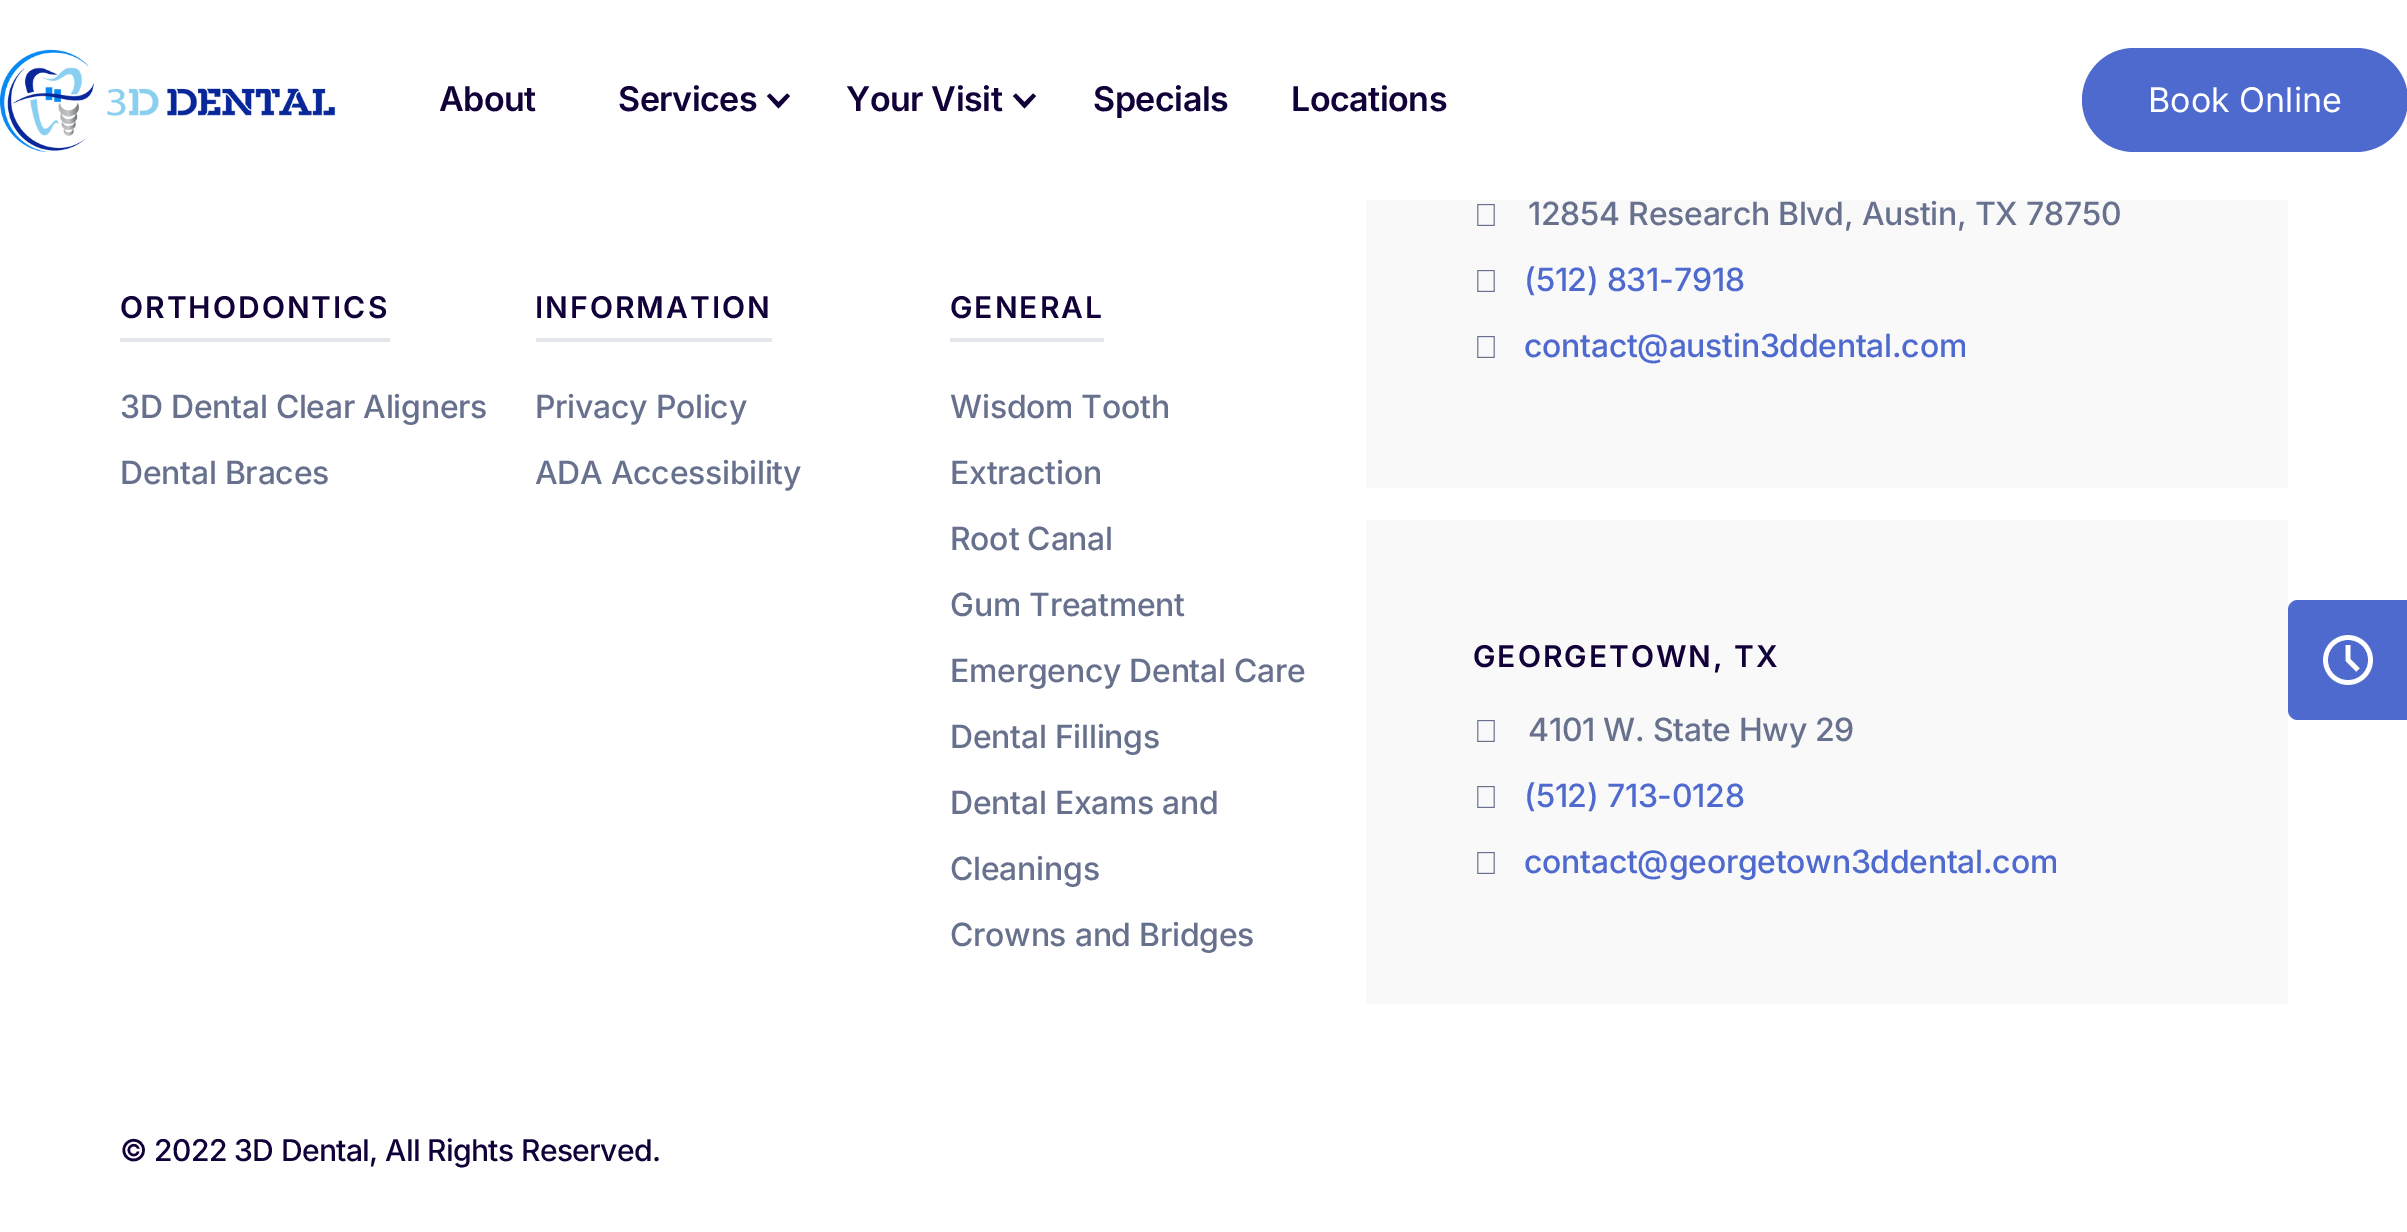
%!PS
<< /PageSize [2407 1232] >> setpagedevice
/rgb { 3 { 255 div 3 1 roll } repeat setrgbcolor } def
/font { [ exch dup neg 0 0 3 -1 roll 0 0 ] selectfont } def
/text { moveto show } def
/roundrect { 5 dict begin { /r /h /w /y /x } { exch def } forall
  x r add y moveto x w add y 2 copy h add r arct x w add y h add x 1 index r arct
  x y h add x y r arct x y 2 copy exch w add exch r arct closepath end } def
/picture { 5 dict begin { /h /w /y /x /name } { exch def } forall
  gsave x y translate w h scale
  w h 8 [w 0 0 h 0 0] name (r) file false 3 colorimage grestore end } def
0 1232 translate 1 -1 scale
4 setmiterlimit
255 255 255 rgb
0 0 2407 1232 rectfill
(img_01.rgb) 0 49 336 103 picture
18 0 56 rgb
787 93.5 moveto -8.5 8.5 rlineto -8.5 -8.5 rlineto -3 2.5 rlineto 11.5 12.5 rlineto 11.5 -12.5 rlineto closepath fill
1033 93.5 moveto -8.5 8.5 rlineto -8.5 -8.5 rlineto -3 2.5 rlineto 11.5 12.5 rlineto 11.5 -12.5 rlineto closepath fill
79 106 206 rgb
2082 48 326 104 52 roundrect fill
227 231 235 rgb
120 338 270 4 rectfill
536 338 236 4 rectfill
950 338 154 4 rectfill
249 249 249 rgb
1366 200 922 288 rectfill
(img_02.rgb) 1477 204 18 22 picture
(img_02.rgb) 1477 270 18 22 picture
(img_02.rgb) 1477 336 18 22 picture
1366 520 922 484 rectfill
(img_02.rgb) 1477 720 18 22 picture
(img_02.rgb) 1477 786 18 22 picture
(img_02.rgb) 1477 852 18 22 picture
79 106 206 rgb
2298 600 moveto 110 0 rlineto 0 120 rlineto -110 0 rlineto -5.5 0 -10 -4.5 -10 -10 rcurveto 0 -100 rlineto 0 -5.5 4.5 -10 10 -10 rcurveto closepath fill
(img_03.rgb) 2323 635 50 50 picture
/Inter-SemiBold 34 font
18 0 56 rgb
439 111 moveto -0.5 0 (About) ashow
618 111 moveto -0.5 0 (Services) ashow
846 111 moveto -0.5 0 (Your Visit) ashow
1093 111 moveto -0.5 0 (Specials) ashow
1291 111 moveto -0.5 0 (Locations) ashow
/Inter-Regular 34 font
255 255 255 rgb
(Book Online) 2148 112 text
/Inter-SemiBold 30 font
18 0 56 rgb
120 318 moveto 2 0 (ORTHODONTICS) ashow
/Inter-Medium 32 font
103 113 142 rgb
120 418 moveto -0.3 0 (3D Dental Clear Aligners) ashow
120 484 moveto -0.3 0 (Dental Braces) ashow
/Inter-SemiBold 30 font
18 0 56 rgb
535 318 moveto 2 0 (INFORMATION) ashow
/Inter-Medium 32 font
103 113 142 rgb
535 418 moveto -0.3 0 (Privacy Policy) ashow
535 484 moveto -0.3 0 (ADA Accessibility) ashow
/Inter-SemiBold 30 font
18 0 56 rgb
950 318 moveto 2 0 (GENERAL) ashow
/Inter-Medium 32 font
103 113 142 rgb
950 418 moveto -0.3 0 (Wisdom Tooth) ashow
950 484 moveto -0.3 0 (Extraction) ashow
950 550 moveto -0.3 0 (Root Canal) ashow
950 616 moveto -0.3 0 (Gum Treatment) ashow
950 682 moveto -0.3 0 (Emergency Dental Care) ashow
950 748 moveto -0.3 0 (Dental Fillings) ashow
950 814 moveto -0.3 0 (Dental Exams and) ashow
950 880 moveto -0.3 0 (Cleanings) ashow
950 946 moveto -0.3 0 (Crowns and Bridges) ashow
1528 225 moveto -0.3 0 (12854 Research Blvd, Austin, TX 78750) ashow
79 106 206 rgb
1524 291 moveto -0.3 0 (\(512\) 831-7918) ashow
1524 357 moveto -0.3 0 (contact@austin3ddental.com) ashow
/Inter-SemiBold 30 font
18 0 56 rgb
1473 667 moveto 2 0 (GEORGETOWN, TX) ashow
/Inter-Medium 32 font
103 113 142 rgb
1528 741 moveto -0.3 0 (4101 W. State Hwy 29) ashow
79 106 206 rgb
1524 807 moveto -0.3 0 (\(512\) 713-0128) ashow
1524 873 moveto -0.3 0 (contact@georgetown3ddental.com) ashow
/Inter-Medium 30 font
18 0 56 rgb
120 1161 moveto -0.6 0 (© 2022 3D Dental, All Rights Reserved.) ashow
showpage
